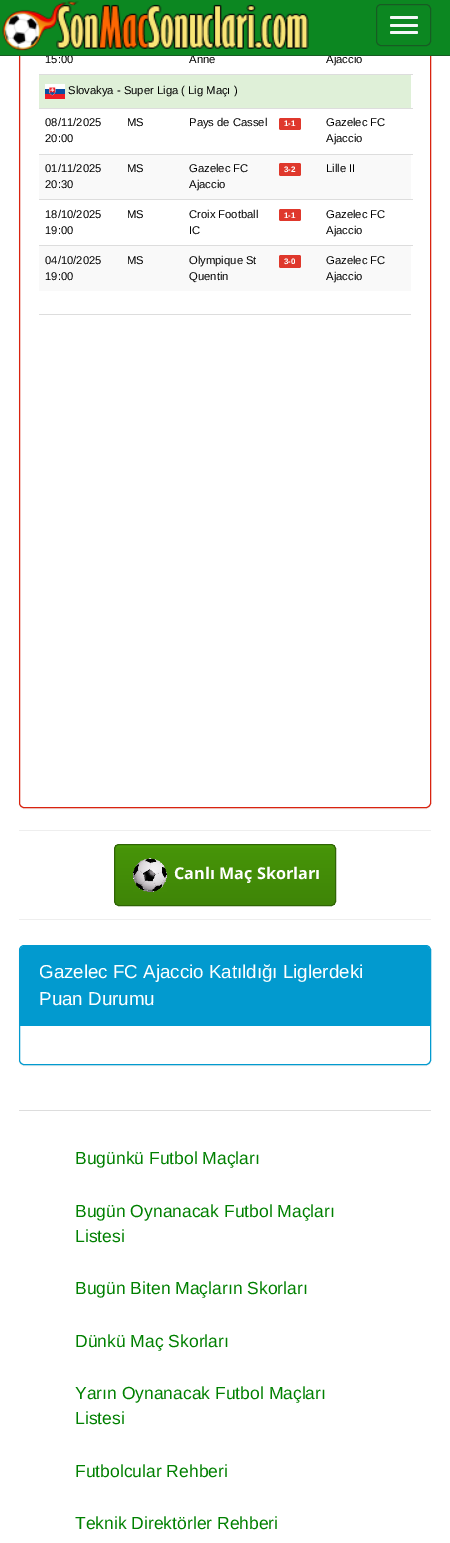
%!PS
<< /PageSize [450 1543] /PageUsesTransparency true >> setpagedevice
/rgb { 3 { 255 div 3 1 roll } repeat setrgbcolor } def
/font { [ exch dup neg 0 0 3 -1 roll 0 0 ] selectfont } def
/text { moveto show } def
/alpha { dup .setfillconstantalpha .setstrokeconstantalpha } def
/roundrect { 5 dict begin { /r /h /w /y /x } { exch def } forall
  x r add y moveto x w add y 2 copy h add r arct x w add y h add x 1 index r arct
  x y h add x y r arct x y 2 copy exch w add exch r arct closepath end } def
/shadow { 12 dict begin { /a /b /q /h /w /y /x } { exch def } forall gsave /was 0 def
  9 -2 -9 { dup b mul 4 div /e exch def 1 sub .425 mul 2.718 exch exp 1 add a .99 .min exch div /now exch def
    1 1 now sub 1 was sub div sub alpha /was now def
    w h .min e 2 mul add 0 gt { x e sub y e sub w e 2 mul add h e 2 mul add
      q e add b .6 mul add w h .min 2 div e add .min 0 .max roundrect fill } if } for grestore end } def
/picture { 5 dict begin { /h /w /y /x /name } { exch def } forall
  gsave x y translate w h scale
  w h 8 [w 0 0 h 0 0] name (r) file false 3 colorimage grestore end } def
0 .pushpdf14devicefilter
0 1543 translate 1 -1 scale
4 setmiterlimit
255 255 255 rgb
0 0 450 1543 rectfill
0 0 0 rgb
19 -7 412 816 5 0.5 0.05 shadow
255 255 255 rgb
19.5 -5.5 411 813 4.5 roundrect gsave fill grestore
217 35 15 rgb
stroke
223 240 216 rgb
39 75 372 33 rectfill
221 221 221 rgb
39 74 374 1 rectfill
(img_02.rgb) 45 84 20 15 picture
39 108 374 1 rectfill
223 56 44 rgb
279 118 22 12 2 roundrect fill
249 249 249 rgb
39 155 372 44 rectfill
221 221 221 rgb
39 154 374 1 rectfill
223 56 44 rgb
279 163 22 13 2 roundrect fill
221 221 221 rgb
39 199 374 1 rectfill
223 56 44 rgb
279 209 22 12 2 roundrect fill
249 249 249 rgb
39 246 372 45 rectfill
221 221 221 rgb
39 245 374 1 rectfill
223 56 44 rgb
279 255 22 13 2 roundrect fill
221 221 221 rgb
39 314 372 1 rectfill
238 238 238 rgb
19 830 412 1 rectfill
19 919 412 1 rectfill
gsave
114 844 222 62 5 roundrect clip newpath
gsave 115 845 moveto 220 0 rlineto 0 60 rlineto -220 0 rlineto closepath clip newpath
<< /ShadingType 2 /ColorSpace /DeviceRGB /Coords [225 845 225 905] /Extend [true true] /Function << /FunctionType 3 /Domain [0 1] /Functions [<< /FunctionType 2 /Domain [0 1] /C0 [0.302 0.639 0.035] /C1 [0.275 0.58 0.031] /N 1 >> << /FunctionType 2 /Domain [0 1] /C0 [0.275 0.58 0.031] /C1 [0.247 0.522 0.027] /N 1 >>] /Bounds [0.06] /Encode [0 1 0 1] >> >> shfill grestore
grestore
47 100 5 rgb
114.5 844.5 221 61 4.5 roundrect stroke
(img_03.rgb) 133 858 34 34 picture
0 0 0 rgb
19 946 412 120 5 0.5 0.05 shadow
255 255 255 rgb
19.5 945.5 411 119 4.5 roundrect gsave fill grestore
2 154 207 rgb
stroke
24 946 moveto 402 0 rlineto 2 0 4 2 4 4 rcurveto 0 76 rlineto -410 0 rlineto 0 -76 rlineto 0 -2 2 -4 4 -4 rcurveto closepath fill
221 221 221 rgb
19 1110 412 1 rectfill
/LiberationSans-Regular 11.25 font
0 0 0 rgb
(15:00) 45 63 text
(Anne) 189 63 text
(Ajaccio) 326 63 text
12 135 33 rgb
0 0 450 55 rectfill
23 92 35 rgb
376.5 4.5 54 41 4.5 roundrect stroke
244 248 249 rgb
390 31 28 3 1.5 roundrect fill
390 24 28 3 1.5 roundrect fill
390 16 28 3 1.5 roundrect fill
(img_01.rgb) 2 1 307 50 picture
23 92 35 rgb
0 55 450 1 rectfill
0 0 0 rgb
(Slovakya - Super Liga \( Lig Maçı \)) 68 94 text
(08/11/2025) 45 126 text
(20:00) 45 142 text
(MS) 127 126 text
(Pays de Cassel) 189 126 text
/LiberationSans-Bold 8 font
255 255 255 rgb
(1-1) 284 126 text
/LiberationSans-Regular 11.25 font
0 0 0 rgb
(Gazelec FC) 326 126 text
(Ajaccio) 326 142 text
(01/11/2025) 45 172 text
(20:30) 45 188 text
(MS) 127 172 text
(Gazelec FC) 189 172 text
(Ajaccio) 189 188 text
/LiberationSans-Bold 8 font
255 255 255 rgb
(3-2) 284 172 text
/LiberationSans-Regular 11.25 font
0 0 0 rgb
(Lille II) 326 172 text
(18/10/2025) 45 218 text
(19:00) 45 234 text
(MS) 127 218 text
(Croix Football) 189 218 text
(IC) 189 234 text
/LiberationSans-Bold 8 font
255 255 255 rgb
(1-1) 284 218 text
/LiberationSans-Regular 11.25 font
0 0 0 rgb
(Gazelec FC) 326 218 text
(Ajaccio) 326 234 text
(04/10/2025) 45 264 text
(19:00) 45 280 text
(MS) 127 264 text
(Olympique St) 189 264 text
(Quentin) 189 280 text
/LiberationSans-Bold 8 font
255 255 255 rgb
(3-0) 284 264 text
/LiberationSans-Regular 11.25 font
0 0 0 rgb
(Gazelec FC) 326 264 text
(Ajaccio) 326 280 text
/OpenSans-Bold 16.25 font
255 255 255 rgb
(Canlı Maç Skorları) 174 879 text
/LiberationSans-Regular 18.75 font
(Gazelec FC Ajaccio Katıldığı Liglerdeki) 39 978 text
(Puan Durumu) 39 1005 text
/LiberationSans-Regular 17.5 font
0 128 0 rgb
(Bugünkü Futbol Maçları) 75 1164 text
(Bugün Oynanacak Futbol Maçları) 75 1217 text
(Listesi) 75 1242 text
(Bugün Biten Maçların Skorları) 75 1294 text
(Dünkü Maç Skorları) 75 1347 text
(Yarın Oynanacak Futbol Maçları) 75 1399 text
(Listesi) 75 1424 text
(Futbolcular Rehberi) 75 1477 text
(Teknik Direktörler Rehberi) 75 1529 text
.poppdf14devicefilter showpage
